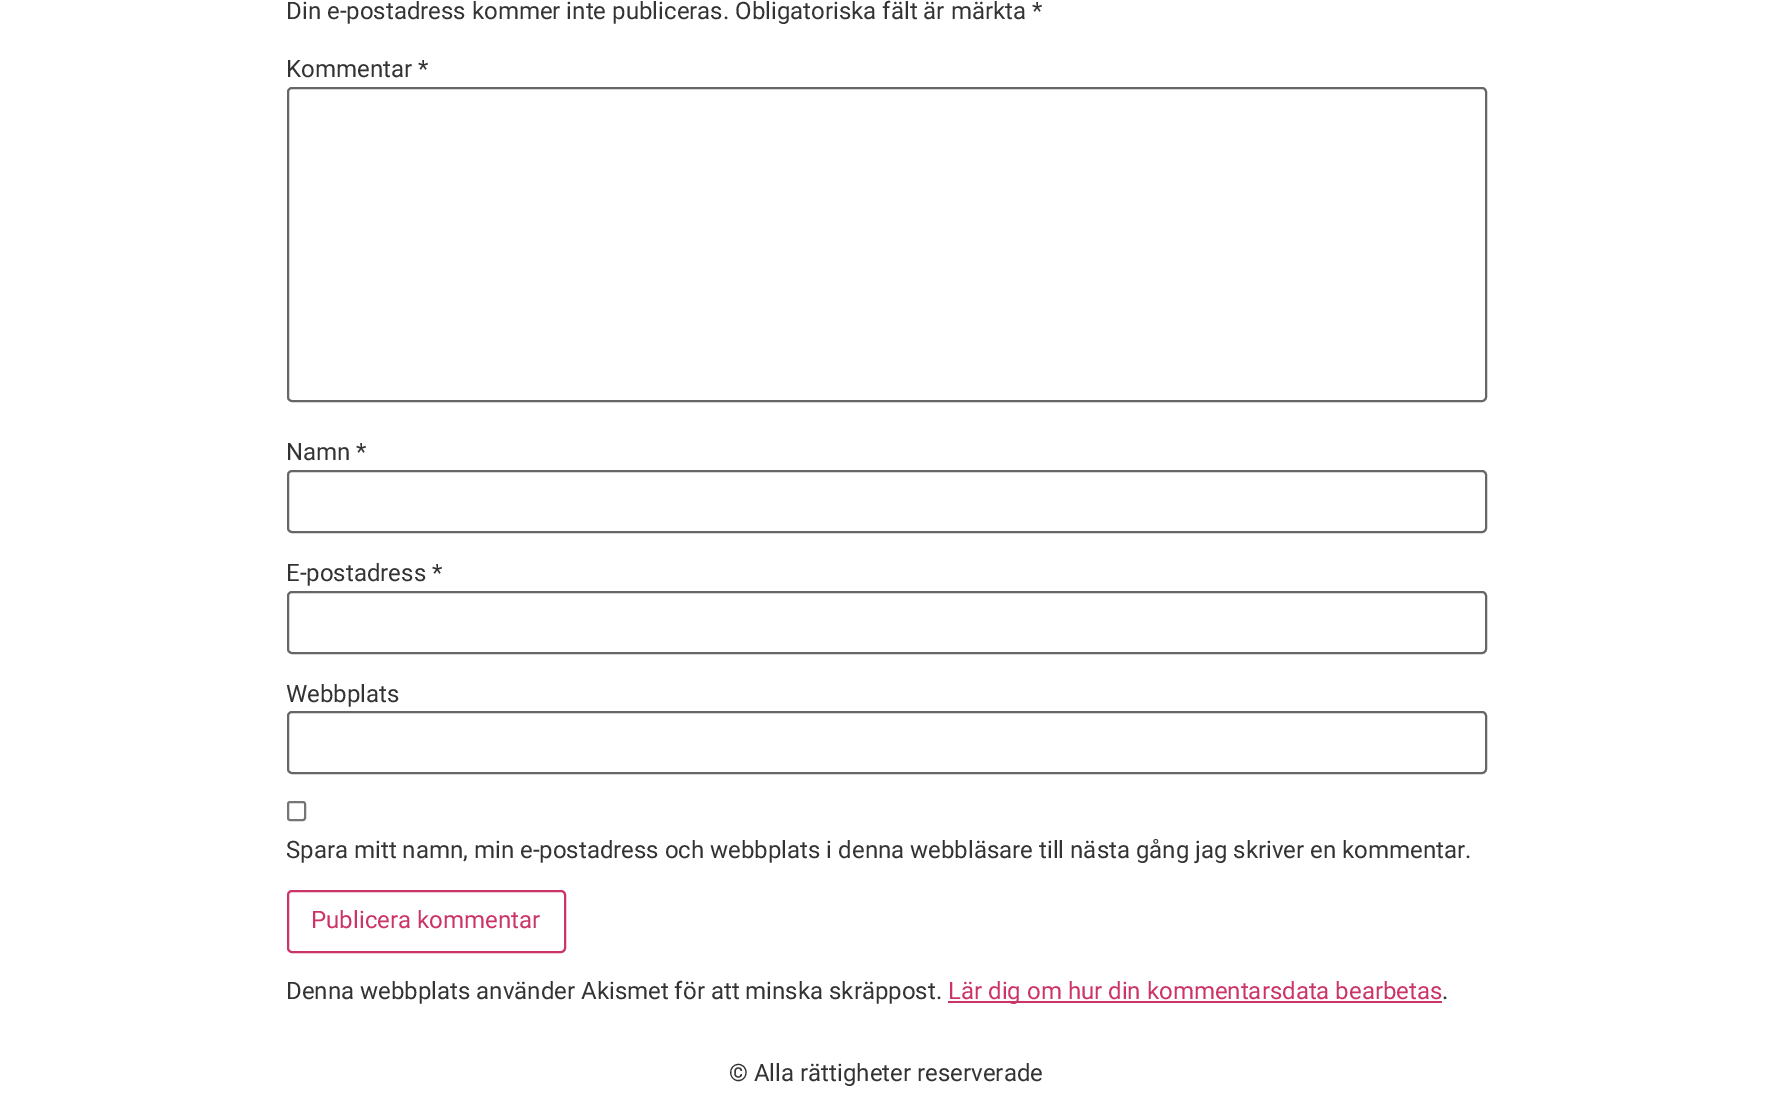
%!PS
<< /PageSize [1771 1115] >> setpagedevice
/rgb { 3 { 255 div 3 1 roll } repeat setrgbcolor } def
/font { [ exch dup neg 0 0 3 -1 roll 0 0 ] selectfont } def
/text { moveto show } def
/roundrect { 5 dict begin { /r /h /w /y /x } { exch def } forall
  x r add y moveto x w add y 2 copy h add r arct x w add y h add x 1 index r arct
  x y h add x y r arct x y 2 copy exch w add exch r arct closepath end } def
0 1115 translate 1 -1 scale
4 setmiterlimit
255 255 255 rgb
0 0 1771 1115 rectfill
102 102 102 rgb
2 setlinewidth
288 88 1198 313 4 roundrect stroke
288 471 1198 61 4 roundrect stroke
288 592 1198 61 4 roundrect stroke
288 712 1198 61 4 roundrect stroke
118 118 118 rgb
288 802 17 18 2 roundrect stroke
204 51 102 rgb
288 891 277 61 4 roundrect stroke
948 1001 494 2 rectfill
/Roboto-Regular 24 font
51 51 51 rgb
(Din e-postadress kommer inte publiceras. Obligatoriska fält är märkta *) 286 19 text
(Kommentar *) 286 77 text
(Namn *) 286 460 text
(E-postadress *) 286 581 text
(Webbplats) 286 702 text
(Spara mitt namn, min e-postadress och webbplats i denna webbläsare till nästa gång jag skriver en kommentar.) 286 858 text
204 51 102 rgb
(Publicera kommentar) 311 928 text
51 51 51 rgb
(Denna webbplats använder Akismet för att minska skräppost.) 286 999 text
204 51 102 rgb
(Lär dig om hur din kommentarsdata bearbetas) 948 999 text
51 51 51 rgb
(.) 1442 999 text
(© Alla rättigheter reserverade) 729 1081 text
showpage
